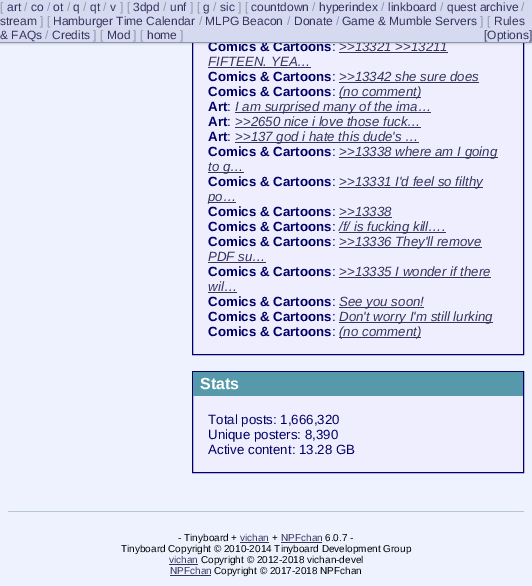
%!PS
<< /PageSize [532 586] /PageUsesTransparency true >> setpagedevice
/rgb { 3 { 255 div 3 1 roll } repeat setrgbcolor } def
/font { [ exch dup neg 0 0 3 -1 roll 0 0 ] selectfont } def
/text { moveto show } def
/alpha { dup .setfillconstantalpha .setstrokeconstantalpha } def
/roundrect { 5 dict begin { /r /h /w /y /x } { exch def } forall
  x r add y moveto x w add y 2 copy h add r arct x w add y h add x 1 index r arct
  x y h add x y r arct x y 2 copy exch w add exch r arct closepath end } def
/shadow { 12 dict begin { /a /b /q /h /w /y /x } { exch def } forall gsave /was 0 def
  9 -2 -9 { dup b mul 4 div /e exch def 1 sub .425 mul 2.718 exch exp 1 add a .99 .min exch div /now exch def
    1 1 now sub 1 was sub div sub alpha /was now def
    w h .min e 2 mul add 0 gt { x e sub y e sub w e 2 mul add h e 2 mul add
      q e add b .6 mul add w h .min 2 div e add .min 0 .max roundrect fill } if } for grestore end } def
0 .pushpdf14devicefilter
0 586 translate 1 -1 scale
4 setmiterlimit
238 242 255 rgb
0 0 532 586 rectfill
238 238 255 rgb
193 43 330 311 rectfill
0 0 102 rgb
192.5 -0.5 331 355 rectstroke
0 0 0 rgb
0 1 532 43 0 1 0.15 shadow
52 52 92 rgb
339 52 109 1 rectfill
208 67 103 1 rectfill
339 82 140 1 rectfill
339 97 82 1 rectfill
235 112 196 1 rectfill
235 127 186 1 rectfill
235 142 184 1 rectfill
339 157 159 1 rectfill
208 172 36 1 rectfill
339 187 144 1 rectfill
208 202 28 1 rectfill
339 217 53 1 rectfill
339 232 107 1 rectfill
339 247 143 1 rectfill
208 262 58 1 rectfill
339 277 152 1 rectfill
208 292 29 1 rectfill
339 307 85 1 rectfill
339 322 154 1 rectfill
339 337 82 1 rectfill
238 238 255 rgb
193 396 330 76 rectfill
0 0 102 rgb
192.5 371.5 331 101 rectstroke
85 153 170 rgb
193 372 330 24 rectfill
183 197 217 rgb
8 511 516 1 rectfill
52 52 92 rgb
240 542 29 1 rectfill
281 542 41 1 rectfill
169 564 29 1 rectfill
170 575 41 1 rectfill
/LiberationSans-Bold 13.3 font
0 0 102 rgb
(Comics & Cartoons) 208 51 text
/LiberationSans-Regular 13.3 font
(:) 332 51 text
/LiberationSans-Italic 13.3 font
52 52 92 rgb
(>>13321 >>13211) 339 51 text
214 218 240 rgb
0 0 532 42 rectfill
/LiberationSans-Regular 12 font
136 153 170 rgb
(]) 180 39 text
52 52 92 rgb
(home) 147 39 text
136 153 170 rgb
(] [) 133 39 text
52 52 92 rgb
(Mod) 107 39 text
136 153 170 rgb
(] [) 93 39 text
52 52 92 rgb
(Credits) 52 39 text
136 153 170 rgb
(/) 45 39 text
52 52 92 rgb
(& FAQs) 0 39 text
(Rules) 494 25 text
136 153 170 rgb
(] [) 480 25 text
52 52 92 rgb
(Game & Mumble Servers) 342 25 text
136 153 170 rgb
(/) 336 25 text
52 52 92 rgb
(Donate) 294 25 text
136 153 170 rgb
(/) 287 25 text
52 52 92 rgb
(MLPG Beacon) 205 25 text
136 153 170 rgb
(/) 199 25 text
52 52 92 rgb
(Hamburger Time Calendar) 53 25 text
136 153 170 rgb
(] [) 40 25 text
52 52 92 rgb
(stream) 0 25 text
136 153 170 rgb
(/) 521 11 text
52 52 92 rgb
(quest archive) 447 11 text
136 153 170 rgb
(/) 440 11 text
52 52 92 rgb
(linkboard) 388 11 text
136 153 170 rgb
(/) 381 11 text
52 52 92 rgb
(hyperindex) 319 11 text
136 153 170 rgb
(/) 312 11 text
52 52 92 rgb
(countdown) 251 11 text
136 153 170 rgb
(] [) 238 11 text
52 52 92 rgb
(sic) 220 11 text
136 153 170 rgb
(/) 213 11 text
52 52 92 rgb
(g) 203 11 text
136 153 170 rgb
(] [) 190 11 text
52 52 92 rgb
(unf) 170 11 text
136 153 170 rgb
(/) 163 11 text
52 52 92 rgb
(3dpd) 133 11 text
136 153 170 rgb
(] [) 120 11 text
52 52 92 rgb
(v) 110 11 text
136 153 170 rgb
(/) 103 11 text
52 52 92 rgb
(qt) 90 11 text
136 153 170 rgb
(/) 83 11 text
52 52 92 rgb
(q) 73 11 text
136 153 170 rgb
(/) 67 11 text
52 52 92 rgb
(ot) 53 11 text
136 153 170 rgb
(/) 47 11 text
52 52 92 rgb
(co) 31 11 text
136 153 170 rgb
(/) 24 11 text
52 52 92 rgb
(art) 7 11 text
136 153 170 rgb
([) 0 11 text
52 52 92 rgb
([Options]) 484 39 text
136 153 170 rgb
0 42 532 1 rectfill
/LiberationSans-Italic 13.3 font
52 52 92 rgb
(FIFTEEN. YEA…) 208 66 text
/LiberationSans-Bold 13.3 font
0 0 102 rgb
(Comics & Cartoons) 208 81 text
/LiberationSans-Regular 13.3 font
(:) 332 81 text
/LiberationSans-Italic 13.3 font
52 52 92 rgb
(>>13342 she sure does) 339 81 text
/LiberationSans-Bold 13.3 font
0 0 102 rgb
(Comics & Cartoons) 208 96 text
/LiberationSans-Regular 13.3 font
(:) 332 96 text
/LiberationSans-Italic 13.3 font
52 52 92 rgb
(\(no comment\)) 339 96 text
/LiberationSans-Bold 13.3 font
0 0 102 rgb
(Art) 208 111 text
/LiberationSans-Regular 13.3 font
(:) 227 111 text
/LiberationSans-Italic 13.3 font
52 52 92 rgb
(I am surprised many of the ima…) 235 111 text
/LiberationSans-Bold 13.3 font
0 0 102 rgb
(Art) 208 126 text
/LiberationSans-Regular 13.3 font
(:) 227 126 text
/LiberationSans-Italic 13.3 font
52 52 92 rgb
(>>2650 nice i love those fuck…) 235 126 text
/LiberationSans-Bold 13.3 font
0 0 102 rgb
(Art) 208 141 text
/LiberationSans-Regular 13.3 font
(:) 227 141 text
/LiberationSans-Italic 13.3 font
52 52 92 rgb
(>>137 god i hate this dude's …) 235 141 text
/LiberationSans-Bold 13.3 font
0 0 102 rgb
(Comics & Cartoons) 208 156 text
/LiberationSans-Regular 13.3 font
(:) 332 156 text
/LiberationSans-Italic 13.3 font
52 52 92 rgb
(>>13338 where am I going) 339 156 text
(to g…) 208 171 text
/LiberationSans-Bold 13.3 font
0 0 102 rgb
(Comics & Cartoons) 208 186 text
/LiberationSans-Regular 13.3 font
(:) 332 186 text
/LiberationSans-Italic 13.3 font
52 52 92 rgb
(>>13331 I'd feel so filthy) 339 186 text
(po…) 208 201 text
/LiberationSans-Bold 13.3 font
0 0 102 rgb
(Comics & Cartoons) 208 216 text
/LiberationSans-Regular 13.3 font
(:) 332 216 text
/LiberationSans-Italic 13.3 font
52 52 92 rgb
(>>13338) 339 216 text
/LiberationSans-Bold 13.3 font
0 0 102 rgb
(Comics & Cartoons) 208 231 text
/LiberationSans-Regular 13.3 font
(:) 332 231 text
/LiberationSans-Italic 13.3 font
52 52 92 rgb
(/f/ is fucking kill….) 339 231 text
/LiberationSans-Bold 13.3 font
0 0 102 rgb
(Comics & Cartoons) 208 246 text
/LiberationSans-Regular 13.3 font
(:) 332 246 text
/LiberationSans-Italic 13.3 font
52 52 92 rgb
(>>13336 They'll remove) 339 246 text
(PDF su…) 208 261 text
/LiberationSans-Bold 13.3 font
0 0 102 rgb
(Comics & Cartoons) 208 276 text
/LiberationSans-Regular 13.3 font
(:) 332 276 text
/LiberationSans-Italic 13.3 font
52 52 92 rgb
(>>13335 I wonder if there) 339 276 text
(wil…) 208 291 text
/LiberationSans-Bold 13.3 font
0 0 102 rgb
(Comics & Cartoons) 208 306 text
/LiberationSans-Regular 13.3 font
(:) 332 306 text
/LiberationSans-Italic 13.3 font
52 52 92 rgb
(See you soon!) 339 306 text
/LiberationSans-Bold 13.3 font
0 0 102 rgb
(Comics & Cartoons) 208 321 text
/LiberationSans-Regular 13.3 font
(:) 332 321 text
/LiberationSans-Italic 13.3 font
52 52 92 rgb
(Don't worry I'm still lurking) 339 321 text
/LiberationSans-Bold 13.3 font
0 0 102 rgb
(Comics & Cartoons) 208 336 text
/LiberationSans-Regular 13.3 font
(:) 332 336 text
/LiberationSans-Italic 13.3 font
52 52 92 rgb
(\(no comment\)) 339 336 text
/LiberationSans-Bold 16 font
255 255 255 rgb
(Stats) 200 389 text
/LiberationSans-Regular 13.3 font
0 0 102 rgb
(Total posts: 1,666,320) 208 424 text
(Unique posters: 8,390) 208 439 text
(Active content: 13.28 GB) 208 454 text
/LiberationSans-Regular 10 font
0 0 0 rgb
(- Tinyboard +) 178 541 text
52 52 92 rgb
(vichan) 240 541 text
0 0 0 rgb
(+) 272 541 text
52 52 92 rgb
(NPFchan) 281 541 text
0 0 0 rgb
(6.0.7 -) 325 541 text
(Tinyboard Copyright © 2010-2014 Tinyboard Development Group) 121 552 text
52 52 92 rgb
(vichan) 169 563 text
0 0 0 rgb
(Copyright © 2012-2018 vichan-devel) 201 563 text
52 52 92 rgb
(NPFchan) 170 574 text
0 0 0 rgb
(Copyright © 2017-2018 NPFchan) 214 574 text
.poppdf14devicefilter showpage
